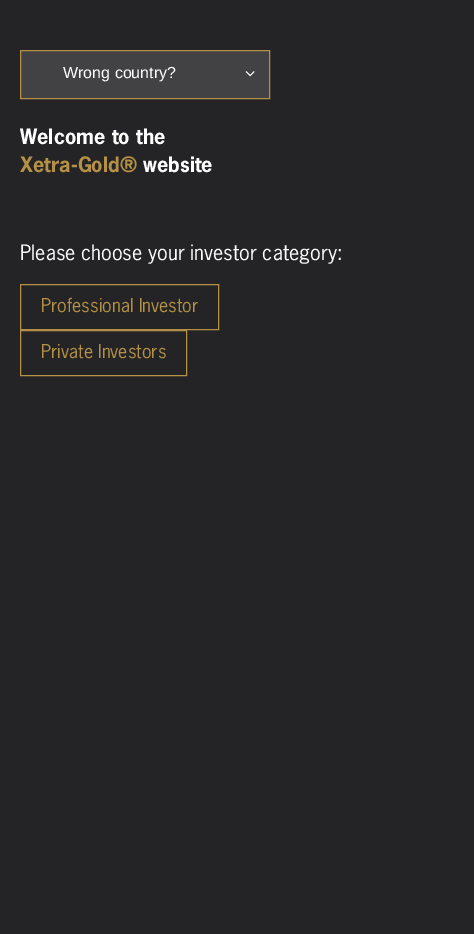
%!PS
<< /PageSize [474 934] >> setpagedevice
/rgb { 3 { 255 div 3 1 roll } repeat setrgbcolor } def
/font { [ exch dup neg 0 0 3 -1 roll 0 0 ] selectfont } def
/text { moveto show } def
/picture { 5 dict begin { /h /w /y /x /name } { exch def } forall
  gsave x y translate w h scale
  w h 8 [w 0 0 h 0 0] name (r) file false 3 colorimage grestore end } def
0 934 translate 1 -1 scale
4 setmiterlimit
36 36 38 rgb
0 0 474 934 rectfill
66 66 68 rgb
20.5 50.5 moveto 249 0 rlineto 0 48 rlineto -249 0 rlineto closepath gsave fill grestore
180 145 70 rgb
stroke
(img_01.rgb) 245 71 10 6 picture
20.5 284.5 198 45 rectstroke
20.5 330.5 166 45 rectstroke
/LiberationSans-Regular 16 font
255 255 255 rgb
(Wrong country?) 63 78 text
/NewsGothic-Bold 20 font
(Welcome to the) 20 144 text
180 145 70 rgb
(Xetra-Gold®) 20 172 text
255 255 255 rgb
(website) 143 172 text
/NewsGothic-Regular 20 font
(Please choose your investor category:) 20 260 text
/NewsGothic-Regular 18 font
180 145 70 rgb
(Professional Investor) 41 312 text
(Private Investors) 41 358 text
showpage
